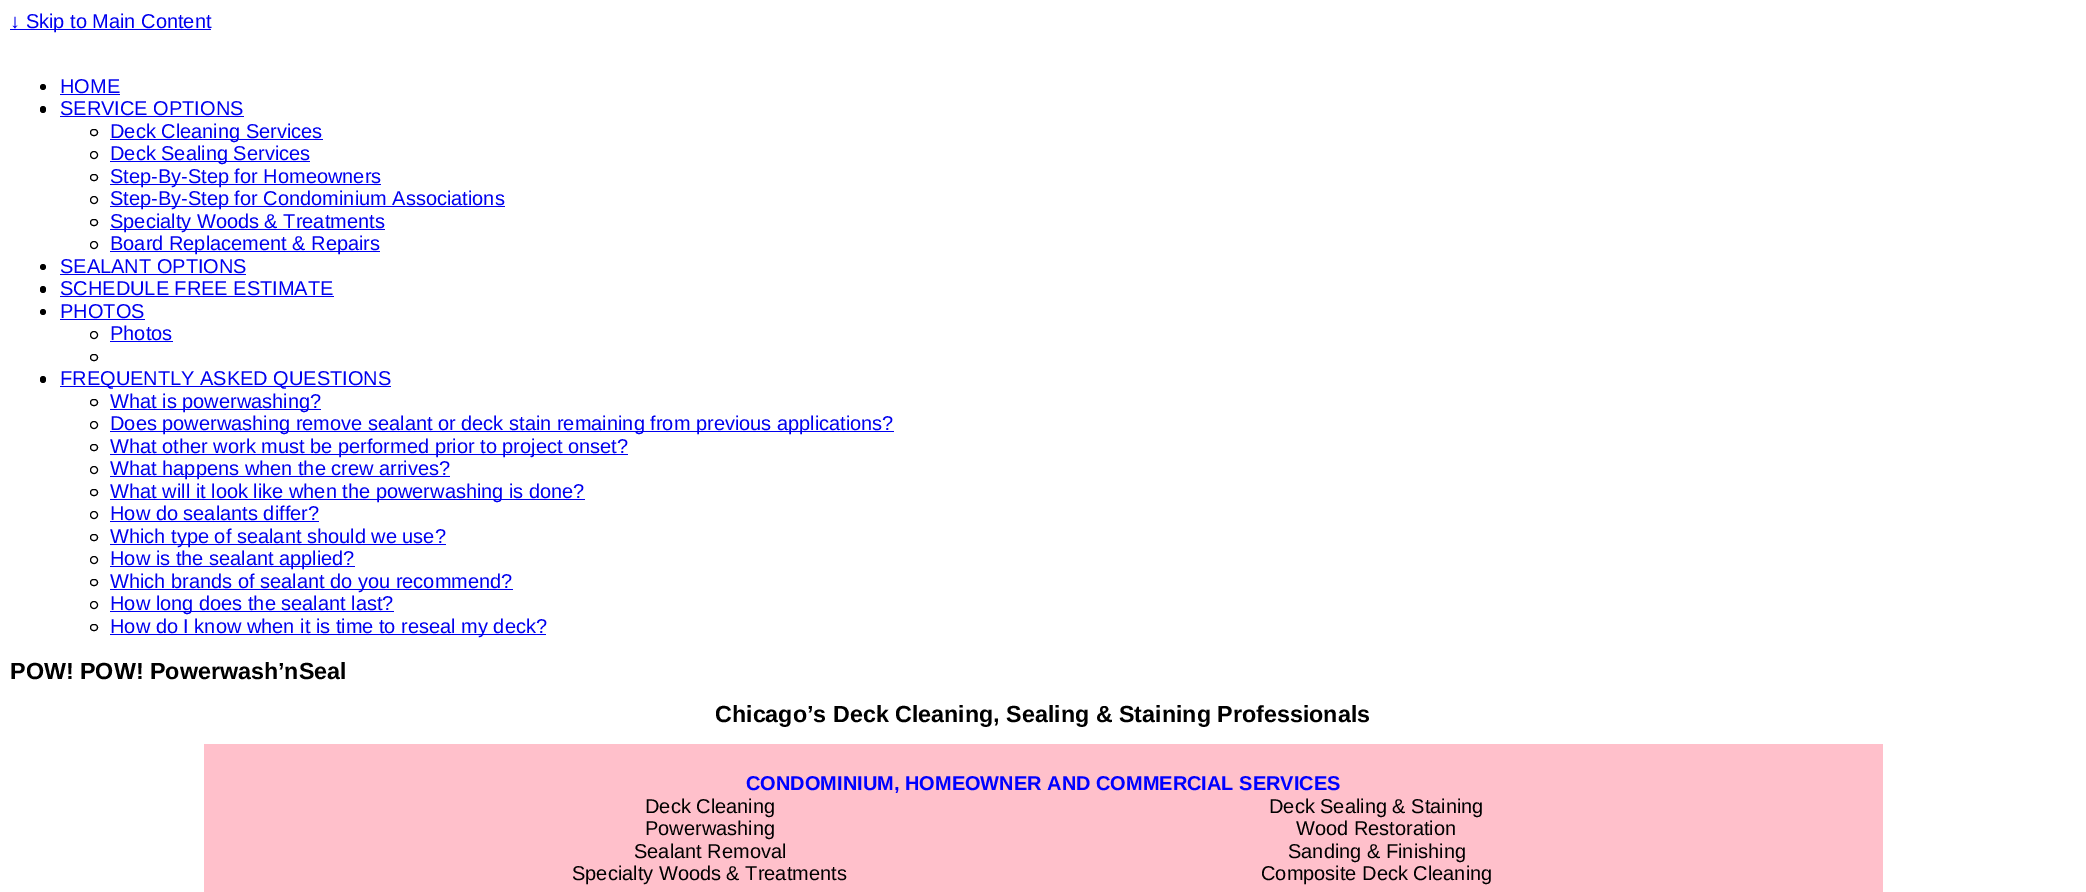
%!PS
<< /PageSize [2086 892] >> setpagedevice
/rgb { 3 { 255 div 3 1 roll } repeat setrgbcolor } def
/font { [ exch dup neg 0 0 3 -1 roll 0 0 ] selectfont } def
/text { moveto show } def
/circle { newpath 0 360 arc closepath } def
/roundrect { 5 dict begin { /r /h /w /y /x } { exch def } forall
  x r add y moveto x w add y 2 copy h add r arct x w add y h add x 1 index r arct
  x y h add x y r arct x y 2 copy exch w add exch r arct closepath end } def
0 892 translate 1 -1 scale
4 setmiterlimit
255 255 255 rgb
0 0 2086 892 rectfill
0 0 238 rgb
10 29 201 1 rectfill
0 0 0 rgb
43 87 3 circle fill
0 0 238 rgb
60 94 60 1 rectfill
0 0 0 rgb
40 106 6 7 3 roundrect fill
0 0 238 rgb
60 116 184 1 rectfill
0 0 0 rgb
90.5 129.5 7 6 3 roundrect stroke
0 0 238 rgb
110 139 213 1 rectfill
0 0 0 rgb
94 155 3.5 circle stroke
0 0 238 rgb
110 161 200 1 rectfill
0 0 0 rgb
90.5 174.5 7 6 3 roundrect stroke
0 0 238 rgb
110 184 271 1 rectfill
0 0 0 rgb
94 200 3.5 circle stroke
0 0 238 rgb
110 206 395 1 rectfill
0 0 0 rgb
90.5 219.5 7 6 3 roundrect stroke
0 0 238 rgb
110 229 275 1 rectfill
0 0 0 rgb
94 245 3.5 circle stroke
0 0 238 rgb
110 251 270 1 rectfill
0 0 0 rgb
43 267 3 circle fill
0 0 238 rgb
60 274 186 1 rectfill
0 0 0 rgb
40 286 6 7 3 roundrect fill
0 0 238 rgb
60 296 274 1 rectfill
0 0 0 rgb
43 312 3 circle fill
0 0 238 rgb
60 319 85 1 rectfill
0 0 0 rgb
94 335 3.5 circle stroke
0 0 238 rgb
110 341 63 1 rectfill
0 0 0 rgb
90.5 354.5 7 6 3 roundrect stroke
40 376 6 7 3 roundrect fill
0 0 238 rgb
60 386 331 1 rectfill
0 0 0 rgb
90.5 399.5 7 6 3 roundrect stroke
0 0 238 rgb
110 409 211 1 rectfill
0 0 0 rgb
94 425 3.5 circle stroke
0 0 238 rgb
110 431 784 1 rectfill
0 0 0 rgb
90.5 444.5 7 6 3 roundrect stroke
0 0 238 rgb
110 454 518 1 rectfill
0 0 0 rgb
94 470 3.5 circle stroke
0 0 238 rgb
110 476 340 1 rectfill
0 0 0 rgb
90.5 489.5 7 6 3 roundrect stroke
0 0 238 rgb
110 499 475 1 rectfill
0 0 0 rgb
94 515 3.5 circle stroke
0 0 238 rgb
110 521 209 1 rectfill
0 0 0 rgb
90.5 534.5 7 6 3 roundrect stroke
0 0 238 rgb
110 544 336 1 rectfill
0 0 0 rgb
94 560 3.5 circle stroke
0 0 238 rgb
110 566 245 1 rectfill
0 0 0 rgb
90.5 579.5 7 6 3 roundrect stroke
0 0 238 rgb
110 589 403 1 rectfill
0 0 0 rgb
94 605 3.5 circle stroke
0 0 238 rgb
110 611 284 1 rectfill
0 0 0 rgb
90.5 624.5 7 6 3 roundrect stroke
0 0 238 rgb
110 634 436 1 rectfill
255 192 203 rgb
204 744 1679 148 rectfill
/LiberationSans-Regular 20 font
0 0 238 rgb
(↓ Skip to Main Content) 10 28 text
(HOME) 60 93 text
(SERVICE OPTIONS) 60 115 text
(Deck Cleaning Services) 110 138 text
(Deck Sealing Services) 110 160 text
(Step-By-Step for Homeowners) 110 183 text
(Step-By-Step for Condominium Associations) 110 205 text
(Specialty Woods & Treatments) 110 228 text
(Board Replacement & Repairs) 110 250 text
(SEALANT OPTIONS) 60 273 text
(SCHEDULE FREE ESTIMATE) 60 295 text
(PHOTOS) 60 318 text
(Photos) 110 340 text
(FREQUENTLY ASKED QUESTIONS) 60 385 text
(What is powerwashing?) 110 408 text
(Does powerwashing remove sealant or deck stain remaining from previous applications?) 110 430 text
(What other work must be performed prior to project onset?) 110 453 text
(What happens when the crew arrives?) 110 475 text
(What will it look like when the powerwashing is done?) 110 498 text
(How do sealants differ?) 110 520 text
(Which type of sealant should we use?) 110 543 text
(How is the sealant applied?) 110 565 text
(Which brands of sealant do you recommend?) 110 588 text
(How long does the sealant last?) 110 610 text
(How do I know when it is time to reseal my deck?) 110 633 text
/LiberationSans-Bold 23.3 font
0 0 0 rgb
(POW! POW! Powerwash’nSeal) 10 679 text
(Chicago’s Deck Cleaning, Sealing & Staining Professionals) 715 722 text
/LiberationSans-Bold 20 font
0 0 255 rgb
(CONDOMINIUM, HOMEOWNER AND COMMERCIAL SERVICES) 746 790 text
/LiberationSans-Regular 20 font
0 0 0 rgb
(Deck Cleaning) 645 813 text
(Powerwashing) 645 835 text
(Sealant Removal) 634 858 text
(Specialty Woods & Treatments) 572 880 text
(Deck Sealing & Staining) 1269 813 text
(Wood Restoration) 1296 835 text
(Sanding & Finishing) 1288 858 text
(Composite Deck Cleaning) 1261 880 text
showpage
